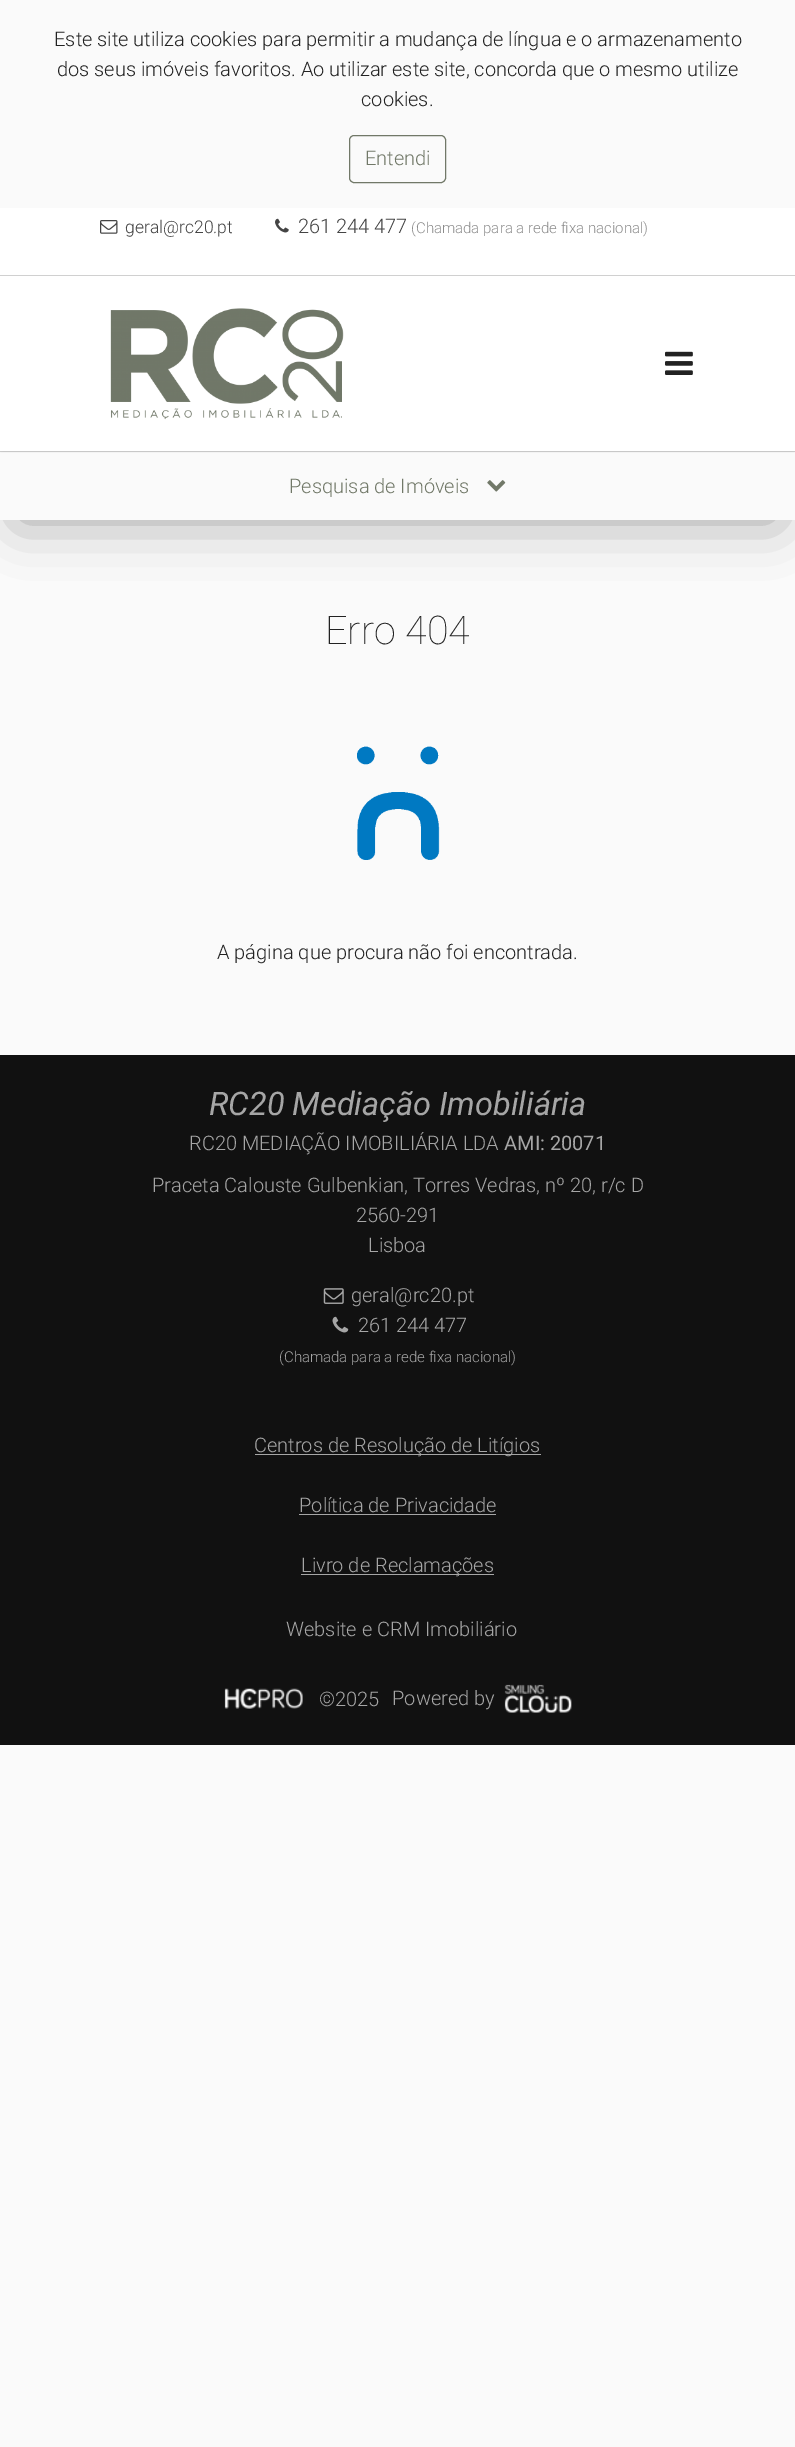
%!PS
<< /PageSize [795 2447] /PageUsesTransparency true >> setpagedevice
/rgb { 3 { 255 div 3 1 roll } repeat setrgbcolor } def
/font { [ exch dup neg 0 0 3 -1 roll 0 0 ] selectfont } def
/text { moveto show } def
/alpha { dup .setfillconstantalpha .setstrokeconstantalpha } def
/roundrect { 5 dict begin { /r /h /w /y /x } { exch def } forall
  x r add y moveto x w add y 2 copy h add r arct x w add y h add x 1 index r arct
  x y h add x y r arct x y 2 copy exch w add exch r arct closepath end } def
/shadow { 12 dict begin { /a /b /q /h /w /y /x } { exch def } forall gsave /was 0 def
  9 -2 -9 { dup b mul 4 div /e exch def 1 sub .425 mul 2.718 exch exp 1 add a .99 .min exch div /now exch def
    1 1 now sub 1 was sub div sub alpha /was now def
    w h .min e 2 mul add 0 gt { x e sub y e sub w e 2 mul add h e 2 mul add
      q e add b .6 mul add w h .min 2 div e add .min 0 .max roundrect fill } if } for grestore end } def
/picture { 5 dict begin { /h /w /y /x /name } { exch def } forall
  gsave x y translate w h scale
  w h 8 [w 0 0 h 0 0] name (r) file false 3 colorimage grestore end } def
0 .pushpdf14devicefilter
0 2447 translate 1 -1 scale
4 setmiterlimit
250 250 250 rgb
0 0 795 2447 rectfill
113 120 104 rgb
349.5 135.5 96 47 4.5 roundrect stroke
205 205 205 rgb
0 451 795 1 rectfill
255 255 255 rgb
0 208 795 67 rectfill
208 208 208 rgb
0 275 795 1 rectfill
(img_01.rgb) 100 220 18 14 picture
(img_02.rgb) 275 218 14 15 picture
gsave
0 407 moveto 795 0 rlineto 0 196 rlineto -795 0 rlineto closepath 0 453 moveto 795 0 rlineto 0 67 rlineto -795 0 rlineto closepath eoclip newpath
0 0 0 rgb
20 491 755 28 0 27.5 0.37 shadow
grestore
255 255 255 rgb
0 276 795 175 rectfill
(img_03.rgb) 110 308 234 112 picture
(img_04.rgb) 665 351 28 24 picture
(img_05.rgb) 487 480 19 12 picture
(img_06.rgb) 357 746 83 114 picture
17 17 17 rgb
0 1055 795 690 rectfill
(img_07.rgb) 323 1288 21 16 picture
(img_08.rgb) 332 1316 17 17 picture
166 166 166 rgb
255 1454 286 1 rectfill
299 1514 197 1 rectfill
301 1574 193 1 rectfill
(img_09.rgb) 224 1688 79 21 picture
(img_10.rgb) 504 1684 68 29 picture
/Roboto-Light 20 font
34 34 34 rgb
(Este site utiliza cookies para permitir a mudança de língua e o armazenamento) 54 46 text
(dos seus imóveis favoritos. Ao utilizar este site, concorda que o mesmo utilize) 57 76 text
(cookies.) 361 106 text
113 120 104 rgb
(Entendi) 365 165 text
/Roboto-Light 17.5 font
68 68 68 rgb
(geral@rc20.pt) 125 233 text
/Roboto-Light 20 font
(261 244 477) 298 233 text
/Roboto-Light 15 font
140 140 140 rgb
(\(Chamada para a rede fixa nacional\)) 411 233 text
/Roboto-Light 20 font
113 120 104 rgb
(Pesquisa de Imóveis) 289 493 text
/Roboto-Thin 39.5 font
34 34 34 rgb
(Erro 404) 325 644 text
/Roboto-Light 20 font
(A página que procura não foi encontrada.) 217 959 text
/Roboto-Italic 32.5 font
166 166 166 rgb
(RC20 Mediação Imobiliária) 209 1115 text
/Roboto-Light 20 font
(RC20 MEDIAÇÃO IMOBILIÁRIA LDA) 189 1150 text
/Roboto-Regular 20 font
(AMI: 20071) 504 1150 text
/Roboto-Light 20 font
(Praceta Calouste Gulbenkian, Torres Vedras, nº 20, r/c D) 152 1192 text
(2560-291) 356 1222 text
(Lisboa) 368 1252 text
(geral@rc20.pt) 351 1302 text
(261 244 477) 358 1332 text
/Roboto-Light 15 font
(\(Chamada para a rede fixa nacional\)) 279 1362 text
/Roboto-Light 20 font
(Centros de Resolução de Litígios) 254 1452 text
(Política de Privacidade) 299 1512 text
(Livro de Reclamações) 301 1572 text
(Website e CRM Imobiliário) 286 1636 text
(©2025) 319 1706 text
(Powered by) 392 1705 text
.poppdf14devicefilter showpage
